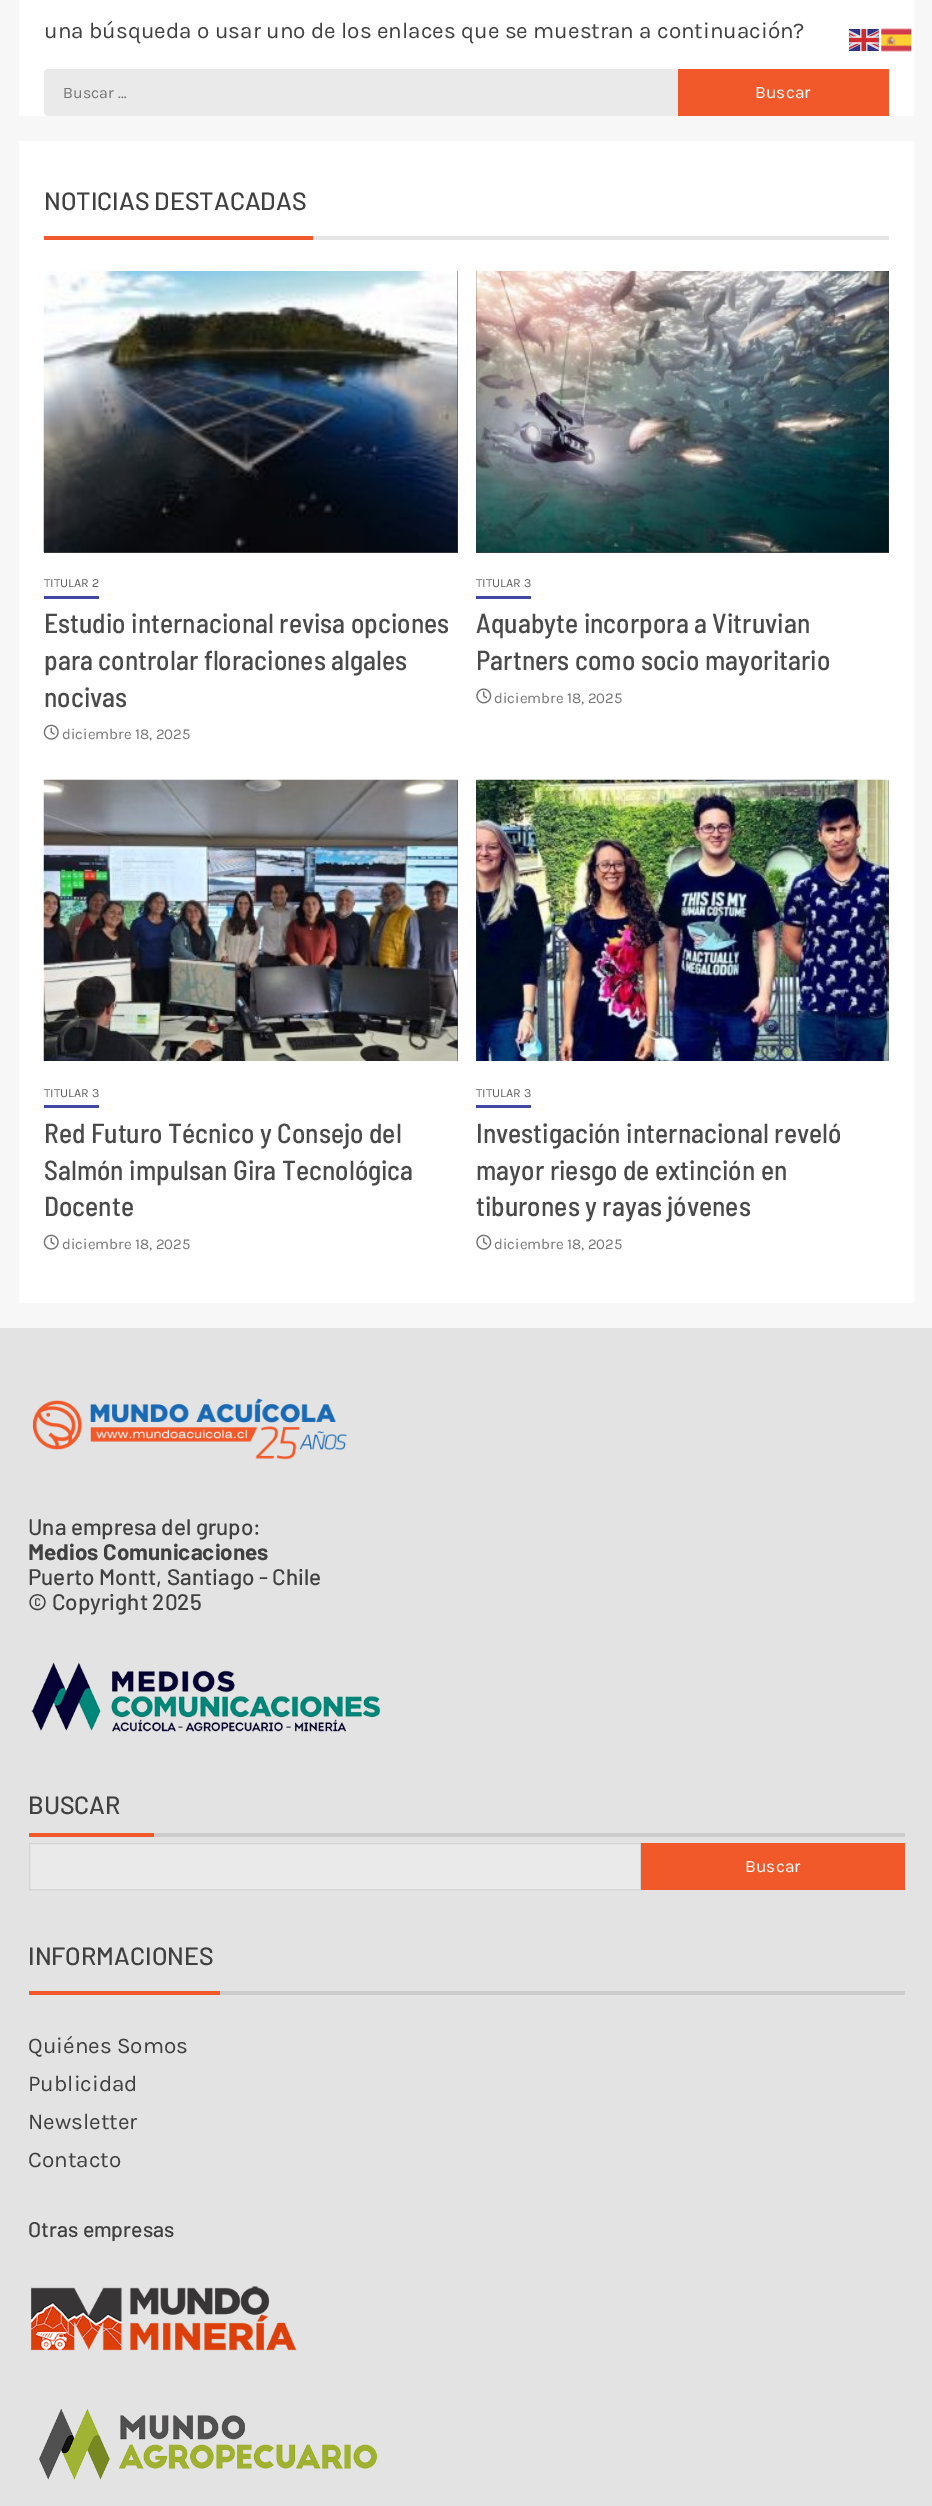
%!PS
<< /PageSize [932 2506] >> setpagedevice
/rgb { 3 { 255 div 3 1 roll } repeat setrgbcolor } def
/font { [ exch dup neg 0 0 3 -1 roll 0 0 ] selectfont } def
/text { moveto show } def
/picture { 5 dict begin { /h /w /y /x /name } { exch def } forall
  gsave x y translate w h scale
  w h 8 [w 0 0 h 0 0] name (r) file false 3 colorimage grestore end } def
0 2506 translate 1 -1 scale
4 setmiterlimit
247 247 247 rgb
0 0 932 2506 rectfill
255 255 255 rgb
19 0 895 116 rectfill
234 234 234 rgb
48 69 moveto 630 0 rlineto 0 47 rlineto -630 0 rlineto -2 0 -4 -2 -4 -4 rcurveto 0 -39 rlineto 0 -2 2 -4 4 -4 rcurveto closepath fill
241 89 42 rgb
678 69 211 47 rectfill
255 255 255 rgb
19 141 895 1162 rectfill
241 89 42 rgb
44 236 269 4 rectfill
230 230 230 rgb
313 236 576 4 rectfill
64 64 64 rgb
44 271 414 282 rectfill
(img_01.rgb) 43 271 415 282 picture
64 72 163 rgb
44 596 55 3 rectfill
(img_02.rgb) 43 724 16 16 picture
64 64 64 rgb
476 271 413 282 rectfill
(img_03.rgb) 476 271 413 282 picture
64 72 163 rgb
476 596 55 3 rectfill
(img_04.rgb) 476 688 16 16 picture
64 64 64 rgb
457 780 1 281 rectfill
(img_05.rgb) 43 779 415 282 picture
64 72 163 rgb
44 1105 55 3 rectfill
(img_02.rgb) 43 1234 16 16 picture
(img_06.rgb) 476 779 413 282 picture
476 1105 55 3 rectfill
(img_07.rgb) 476 1234 16 16 picture
227 227 227 rgb
0 1328 932 1178 rectfill
(img_08.rgb) 32 1398 315 62 picture
(img_09.rgb) 31 1662 350 71 picture
241 89 42 rgb
29 1833 125 4 rectfill
204 204 204 rgb
154 1833 751 4 rectfill
234 234 234 rgb
29.5 1843.5 moveto 611 0 rlineto 0 46 rlineto -611 0 rlineto closepath gsave fill grestore
211 211 211 rgb
stroke
241 89 42 rgb
641 1843 264 47 rectfill
29 1991 191 4 rectfill
204 204 204 rgb
220 1991 685 4 rectfill
(img_10.rgb) 31 2286 266 65 picture
(img_11.rgb) 39 2409 339 71 picture
(img_12.rgb) 849 29 30 22 picture
(img_13.rgb) 881 28 31 24 picture
/Karla-Regular 22.5 font
64 64 64 rgb
(una búsqueda o usar uno de los enlaces que se muestran a continuación?) 44 38 text
/Karla-Regular 16 font
117 117 117 rgb
(Buscar …) 63 98 text
/Karla-Regular 17.5 font
255 255 255 rgb
(Buscar) 755 98 text
/Barlow-Medium 25 font
64 64 64 rgb
(NOTICIAS DESTACADAS) 44 210 text
/Karla-Regular 12.5 font
96 96 96 rgb
(TITULAR 2) 44 587 text
/BarlowSemiCondensed-Medium 27.5 font
74 74 74 rgb
(Estudio internacional revisa opciones) 44 633 text
(para controlar floraciones algales) 44 670 text
(nocivas) 44 707 text
/Karla-Regular 15 font
117 117 117 rgb
(diciembre 18, 2025) 62 739 text
/Karla-Regular 12.5 font
96 96 96 rgb
(TITULAR 3) 476 587 text
/BarlowSemiCondensed-Medium 27.5 font
74 74 74 rgb
(Aquabyte incorpora a Vitruvian) 476 633 text
(Partners como socio mayoritario) 476 670 text
/Karla-Regular 15 font
117 117 117 rgb
(diciembre 18, 2025) 494 703 text
/Karla-Regular 12.5 font
96 96 96 rgb
(TITULAR 3) 44 1097 text
/BarlowSemiCondensed-Medium 27.5 font
74 74 74 rgb
(Red Futuro Técnico y Consejo del) 44 1143 text
(Salmón impulsan Gira Tecnológica) 44 1180 text
(Docente) 44 1216 text
/Karla-Regular 15 font
117 117 117 rgb
(diciembre 18, 2025) 62 1249 text
/Karla-Regular 12.5 font
96 96 96 rgb
(TITULAR 3) 476 1097 text
/BarlowSemiCondensed-Medium 27.5 font
74 74 74 rgb
(Investigación internacional reveló) 476 1143 text
(mayor riesgo de extinción en) 476 1180 text
(tiburones y rayas jóvenes) 476 1216 text
/Karla-Regular 15 font
117 117 117 rgb
(diciembre 18, 2025) 494 1249 text
/Barlow-Medium 22.5 font
64 64 64 rgb
(Una empresa del grupo:) 28 1535 text
/Barlow-Bold 22.5 font
(Medios Comunicaciones) 28 1560 text
/Barlow-Medium 22.5 font
(Puerto Montt, Santiago - Chile) 28 1585 text
(© Copyright 2025) 28 1610 text
/Barlow-Medium 25 font
(BUSCAR) 28 1814 text
/Karla-Regular 17.5 font
255 255 255 rgb
(Buscar) 745 1872 text
/Barlow-Medium 25 font
64 64 64 rgb
(INFORMACIONES) 28 1965 text
/Karla-Regular 22.5 font
(Quiénes Somos) 28 2053 text
(Publicidad) 28 2091 text
(Newsletter) 28 2129 text
(Contacto) 28 2167 text
/Barlow-Medium 21.25 font
(Otras empresas) 28 2237 text
showpage
